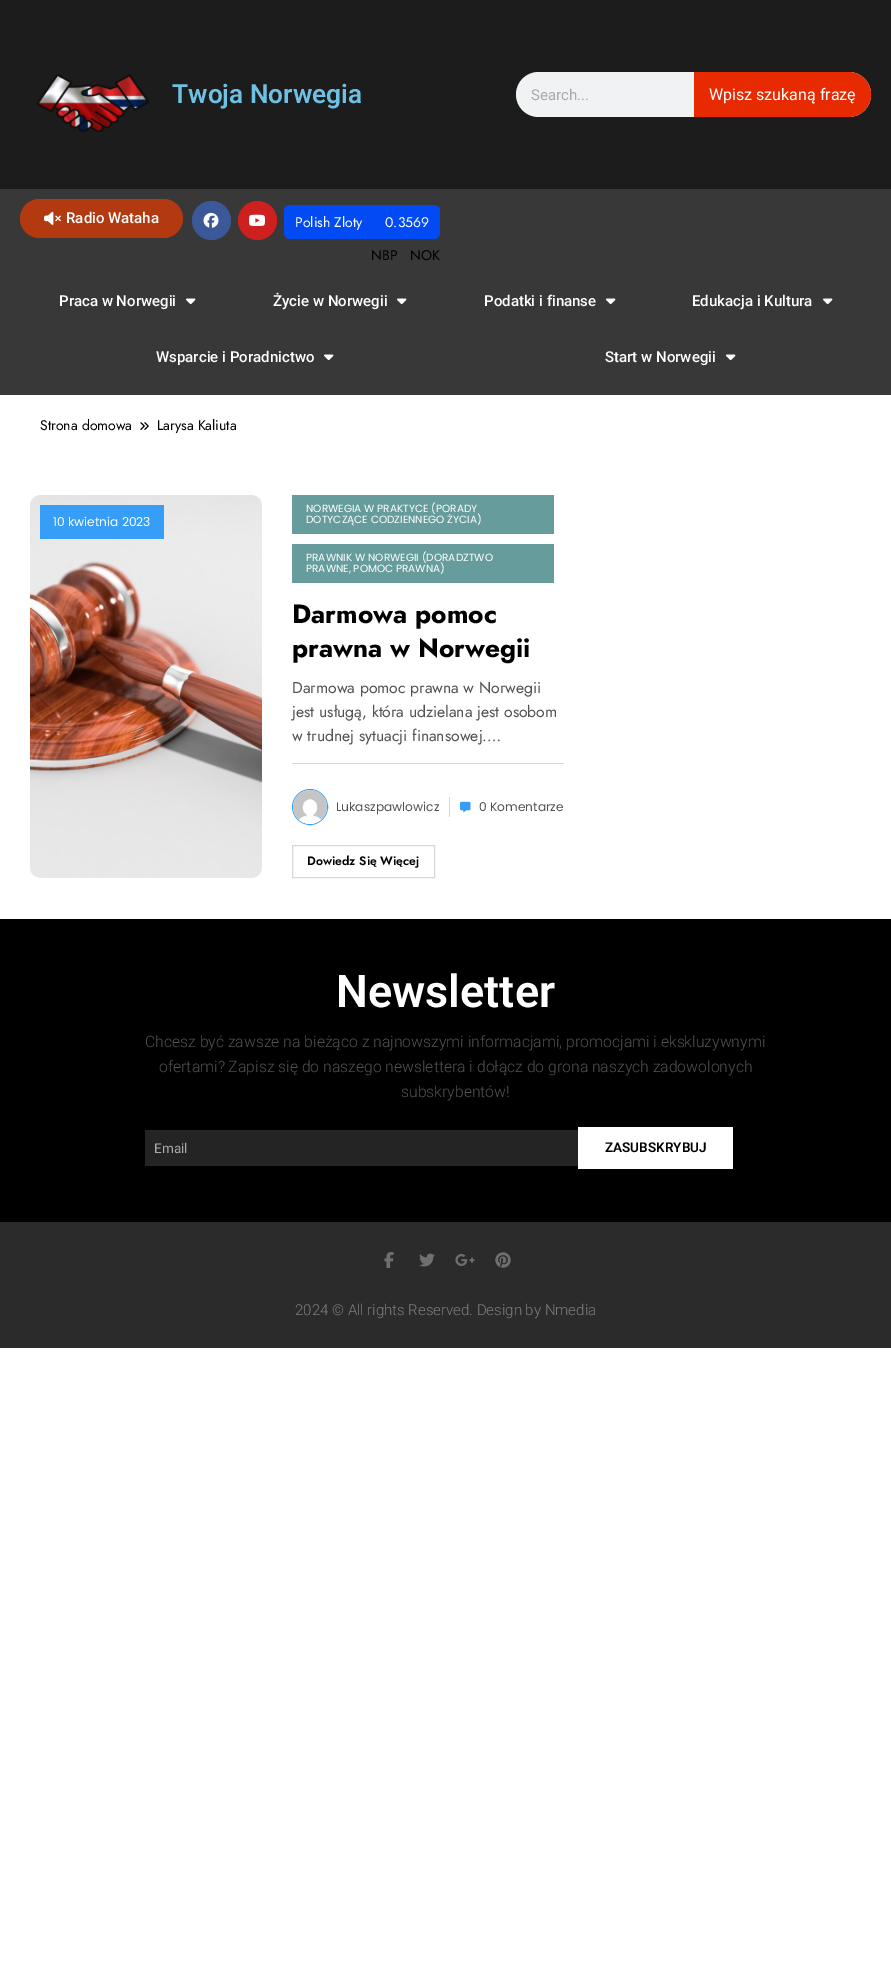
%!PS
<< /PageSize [891 1986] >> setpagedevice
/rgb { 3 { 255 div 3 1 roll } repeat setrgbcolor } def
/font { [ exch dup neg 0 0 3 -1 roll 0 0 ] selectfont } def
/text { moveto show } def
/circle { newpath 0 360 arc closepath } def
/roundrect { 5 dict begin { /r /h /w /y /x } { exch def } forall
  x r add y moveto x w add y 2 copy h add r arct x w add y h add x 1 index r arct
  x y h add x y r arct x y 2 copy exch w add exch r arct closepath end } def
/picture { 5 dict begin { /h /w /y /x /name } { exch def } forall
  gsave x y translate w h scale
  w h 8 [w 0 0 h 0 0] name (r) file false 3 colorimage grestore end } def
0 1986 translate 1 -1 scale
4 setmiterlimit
255 255 255 rgb
0 0 891 1986 rectfill
28 28 28 rgb
0 0 891 189 rectfill
(img_01.rgb) 36 74 114 58 picture
241 242 243 rgb
516 72 355 45 22.5 roundrect fill
232 42 0 rgb
694 72 moveto 154.5 0 rlineto 12.5 0 22.5 10 22.5 22.5 rcurveto 0 12.5 -10 22.5 -22.5 22.5 rcurveto -154.5 0 rlineto closepath fill
56 56 56 rgb
0 189 891 206 rectfill
179 57 17 rgb
20 199 163 39 19.5 roundrect fill
(img_02.rgb) 44 211 17 14 picture
59 89 152 rgb
211.5 220.5 19.5 circle fill
(img_03.rgb) 203 212 16 16 picture
205 32 31 rgb
257.5 220.5 19.5 circle fill
(img_04.rgb) 249 214 16 12 picture
2 75 244 rgb
290 205 moveto 83 0 rlineto 0 34 rlineto -83 0 rlineto -3.5 0 -6 -2.5 -6 -6 rcurveto 0 -22 rlineto 0 -3.5 2.5 -6 6 -6 rcurveto closepath fill
373 205 moveto 61 0 rlineto 3.5 0 6 2.5 6 6 rcurveto 0 22 rlineto 0 3.5 -2.5 6 -6 6 rcurveto -61 0 rlineto closepath fill
(img_05.rgb) 186 298 10 7 picture
(img_05.rgb) 397 298 10 7 picture
(img_05.rgb) 606 298 10 7 picture
(img_05.rgb) 823 298 10 7 picture
(img_05.rgb) 324 354 10 7 picture
(img_05.rgb) 726 354 10 7 picture
(img_06.rgb) 140 422 9 8 picture
(img_07.rgb) 30 495 232 383 picture
54 158 246 rgb
40 505 124 34 rectfill
102 156 155 rgb
292 495 262 39 rectfill
292 544 262 39 rectfill
215 215 215 rgb
292 763 272 1 rectfill
54 158 246 rgb
310 807 17.5 circle stroke
(img_08.rgb) 293 790 34 34 picture
215 215 215 rgb
449 797 1 20 rectfill
(img_09.rgb) 460 801 11 12 picture
292.5 845.5 142 32 rectstroke
0 0 0 rgb
0 919 891 303 rectfill
36 36 36 rgb
145 1130 433 36 rectfill
255 255 255 rgb
578 1127 155 42 rectfill
43 43 43 rgb
0 1222 891 126 rectfill
(img_10.rgb) 384 1252 10 16 picture
(img_11.rgb) 419 1253 16 14 picture
(img_12.rgb) 455 1254 20 12 picture
(img_13.rgb) 495 1252 16 16 picture
/Roboto-SemiBold 26.25 font
110 193 228 rgb
(Twoja Norwegia) 172 103 text
/Roboto-Regular 15 font
170 170 170 rgb
(Search...) 531 100 text
/Roboto-Regular 16 font
255 255 255 rgb
(Wpisz szukaną frazę) 709 100 text
/Roboto-Medium 15 font
(Radio Wataha) 66 223 text
/Jost-Regular 14 font
(Polish Zloty) 295 227 text
(0.3569) 385 227 text
0 0 0 rgb
(NBP) 371 260 text
(NOK) 410 260 text
/Roboto-Medium 15 font
255 255 255 rgb
(Praca w Norwegii) 59 306 text
(Życie w Norwegii) 273 306 text
(Podatki i finanse) 484 306 text
(Edukacja i Kultura) 692 306 text
(Wsparcie i Poradnictwo) 156 362 text
(Start w Norwegii) 605 362 text
/Jost-Regular 14 font
0 0 0 rgb
(Strona domowa) 40 430 text
(Larysa Kaliuta) 157 430 text
/Poppins-Regular 12.25 font
255 255 255 rgb
(10 kwietnia 2023) 53 526 text
/Poppins-Regular 10.5 font
(NORWEGIA W PRAKTYCE \(PORADY) 306 512 text
(DOTYCZĄCE CODZIENNEGO ŻYCIA\)) 306 523 text
(PRAWNIK W NORWEGII \(DORADZTWO) 306 561 text
(PRAWNE, POMOC PRAWNA\)) 306 572 text
/Jost-Bold 26.25 font
0 0 0 rgb
(Darmowa pomoc) 292 623 text
(prawna w Norwegii) 292 657 text
/Jost-Regular 15.75 font
82 82 82 rgb
(Darmowa pomoc prawna w Norwegii) 292 693 text
(jest usługą, która udzielana jest osobom) 292 717 text
(w trudnej sytuacji finansowej.…) 292 741 text
/Poppins-Regular 12.25 font
(Lukaszpawlowicz) 336 811 text
(0 Komentarze) 479 811 text
/Jost-SemiBold 12.25 font
0 0 0 rgb
(Dowiedz Się Więcej) 307 865 text
/Roboto-SemiBold 45 font
255 255 255 rgb
(Newsletter) 336 1007 text
/Roboto-Light 15.75 font
82 82 82 rgb
(Chcesz być zawsze na bieżąco z najnowszymi informacjami, promocjami i ekskluzywnymi) 145 1047 text
(ofertami? Zapisz się do naszego newslettera i dołącz do grona naszych zadowolonych) 159 1072 text
(subskrybentów!) 401 1097 text
/Roboto-Regular 13.5 font
170 170 170 rgb
(Email) 154 1153 text
/Roboto-SemiBold 13.5 font
0 0 0 rgb
(ZASUBSKRYBUJ) 605 1152 text
/Roboto-Light 15 font
126 126 126 rgb
(2024 © All rights Reserved. Design by Nmedia) 295 1315 text
showpage
